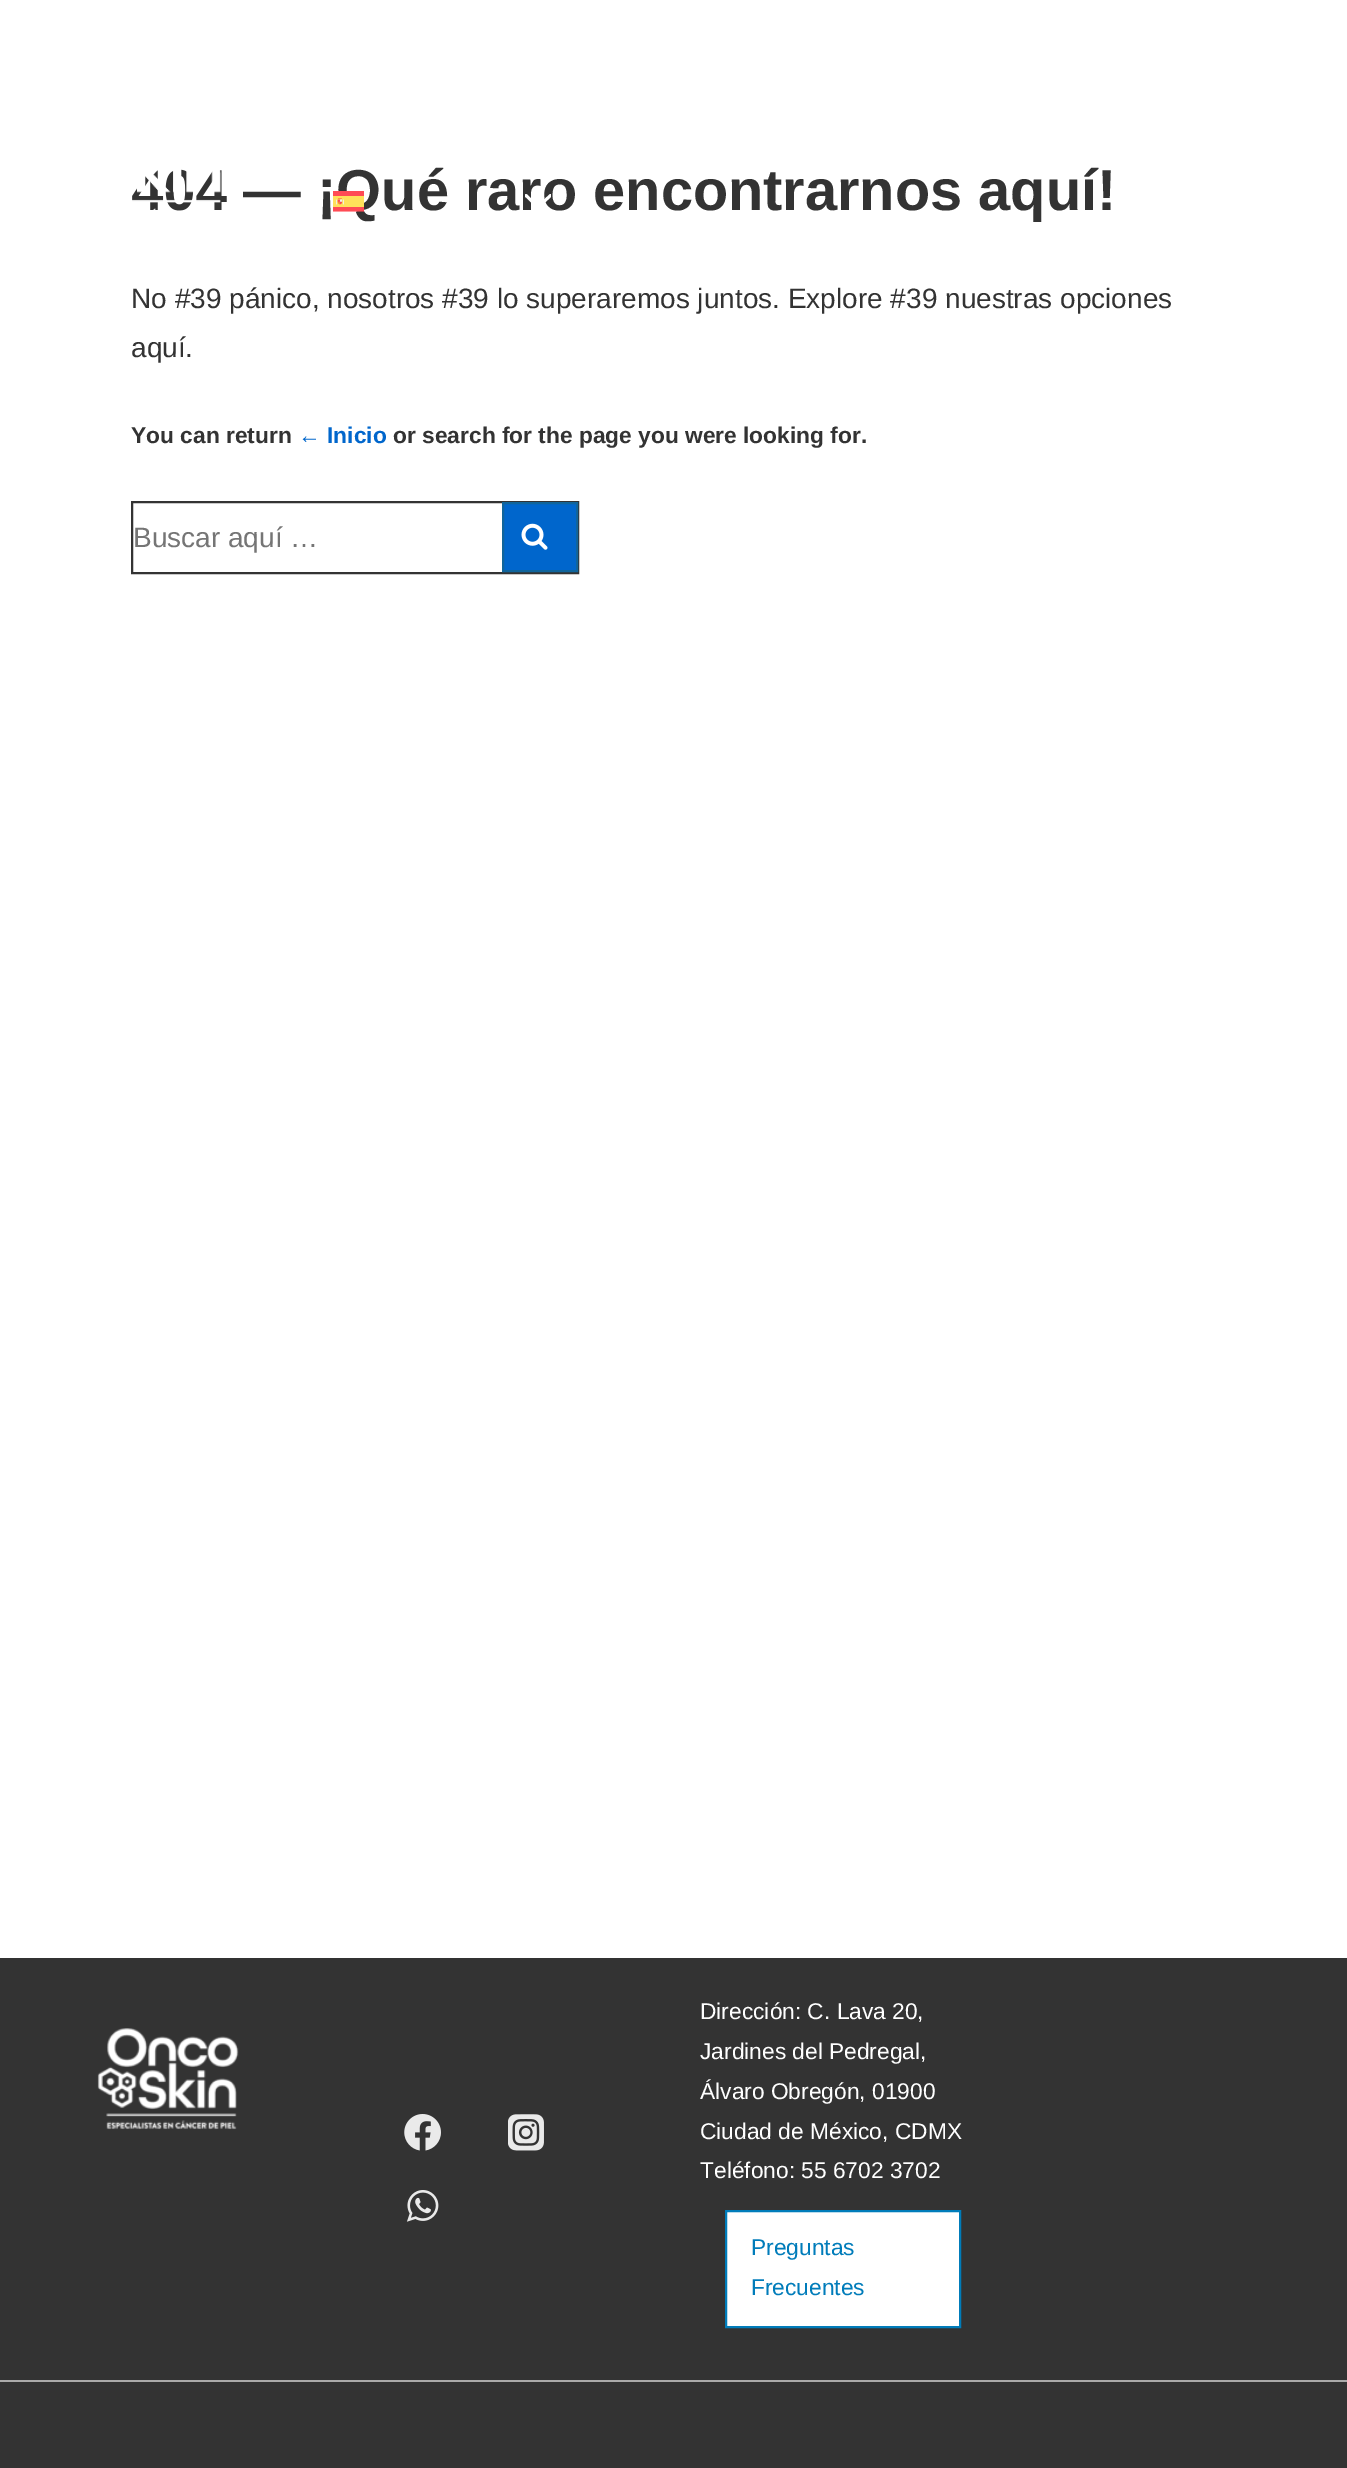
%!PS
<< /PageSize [1347 2468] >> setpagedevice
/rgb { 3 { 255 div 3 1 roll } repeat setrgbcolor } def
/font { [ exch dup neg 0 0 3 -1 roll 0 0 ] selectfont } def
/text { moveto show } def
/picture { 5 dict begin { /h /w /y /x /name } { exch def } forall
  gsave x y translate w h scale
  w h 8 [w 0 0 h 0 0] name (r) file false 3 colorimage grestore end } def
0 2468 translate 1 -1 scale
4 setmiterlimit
255 255 255 rgb
0 0 1347 2468 rectfill
51 51 51 rgb
2 setlinewidth
132 502 446 71 rectstroke
0 102 204 rgb
503 503 moveto 74 0 rlineto 0 68 rlineto -74 0 rlineto closepath gsave fill grestore
16 101 156 rgb
stroke
(img_01.rgb) 521 523 27 27 picture
51 51 51 rgb
0 1958 1347 510 rectfill
(img_04.rgb) 97 2028 142 102 picture
255 255 255 rgb
726 2211 moveto 234 0 rlineto 0 116 rlineto -234 0 rlineto closepath gsave fill grestore
0 124 186 rgb
stroke
(img_05.rgb) 404 2114 37 37 picture
(img_06.rgb) 508 2114 36 37 picture
(img_07.rgb) 406 2190 33 32 picture
170 170 170 rgb
0 2380 1347 2 rectfill
/LiberationSans-Bold 57.75 font
51 51 51 rgb
(404 — ¡Qué raro encontrarnos aquí!) 131 210 text
/LiberationSans-Regular 28 font
(No #39 pánico, nosotros #39 lo superaremos juntos. Explore #39 nuestras opciones) 131 308 text
(aquí.) 131 357 text
/LiberationSans-Bold 22.75 font
(You can return) 131 443 text
0 102 204 rgb
(← Inicio) 298 443 text
51 51 51 rgb
(or search for the page you were looking for.) 393 443 text
/LiberationSans-Regular 28 font
117 117 117 rgb
(Buscar aquí …) 133 547 text
(img_02.rgb) 132 169 89 42 picture
(img_03.rgb) 333 191 31 21 picture
gsave
525 194 26 14 rectclip
255 255 255 rgb
2.9 setlinewidth
1 setlinecap
526 195.5 moveto 12 11.5 rlineto 12.5 -11.5 rlineto stroke
grestore
/LiberationSans-Regular 22.75 font
255 255 255 rgb
(Dirección: C. Lava 20,) 700 2019 text
(Jardines del Pedregal,) 700 2059 text
(Álvaro Obregón, 01900) 700 2099 text
(Ciudad de México, CDMX) 700 2139 text
(Teléfono: 55 6702 3702) 700 2178 text
0 124 186 rgb
(Preguntas) 751 2255 text
(Frecuentes) 751 2295 text
showpage
